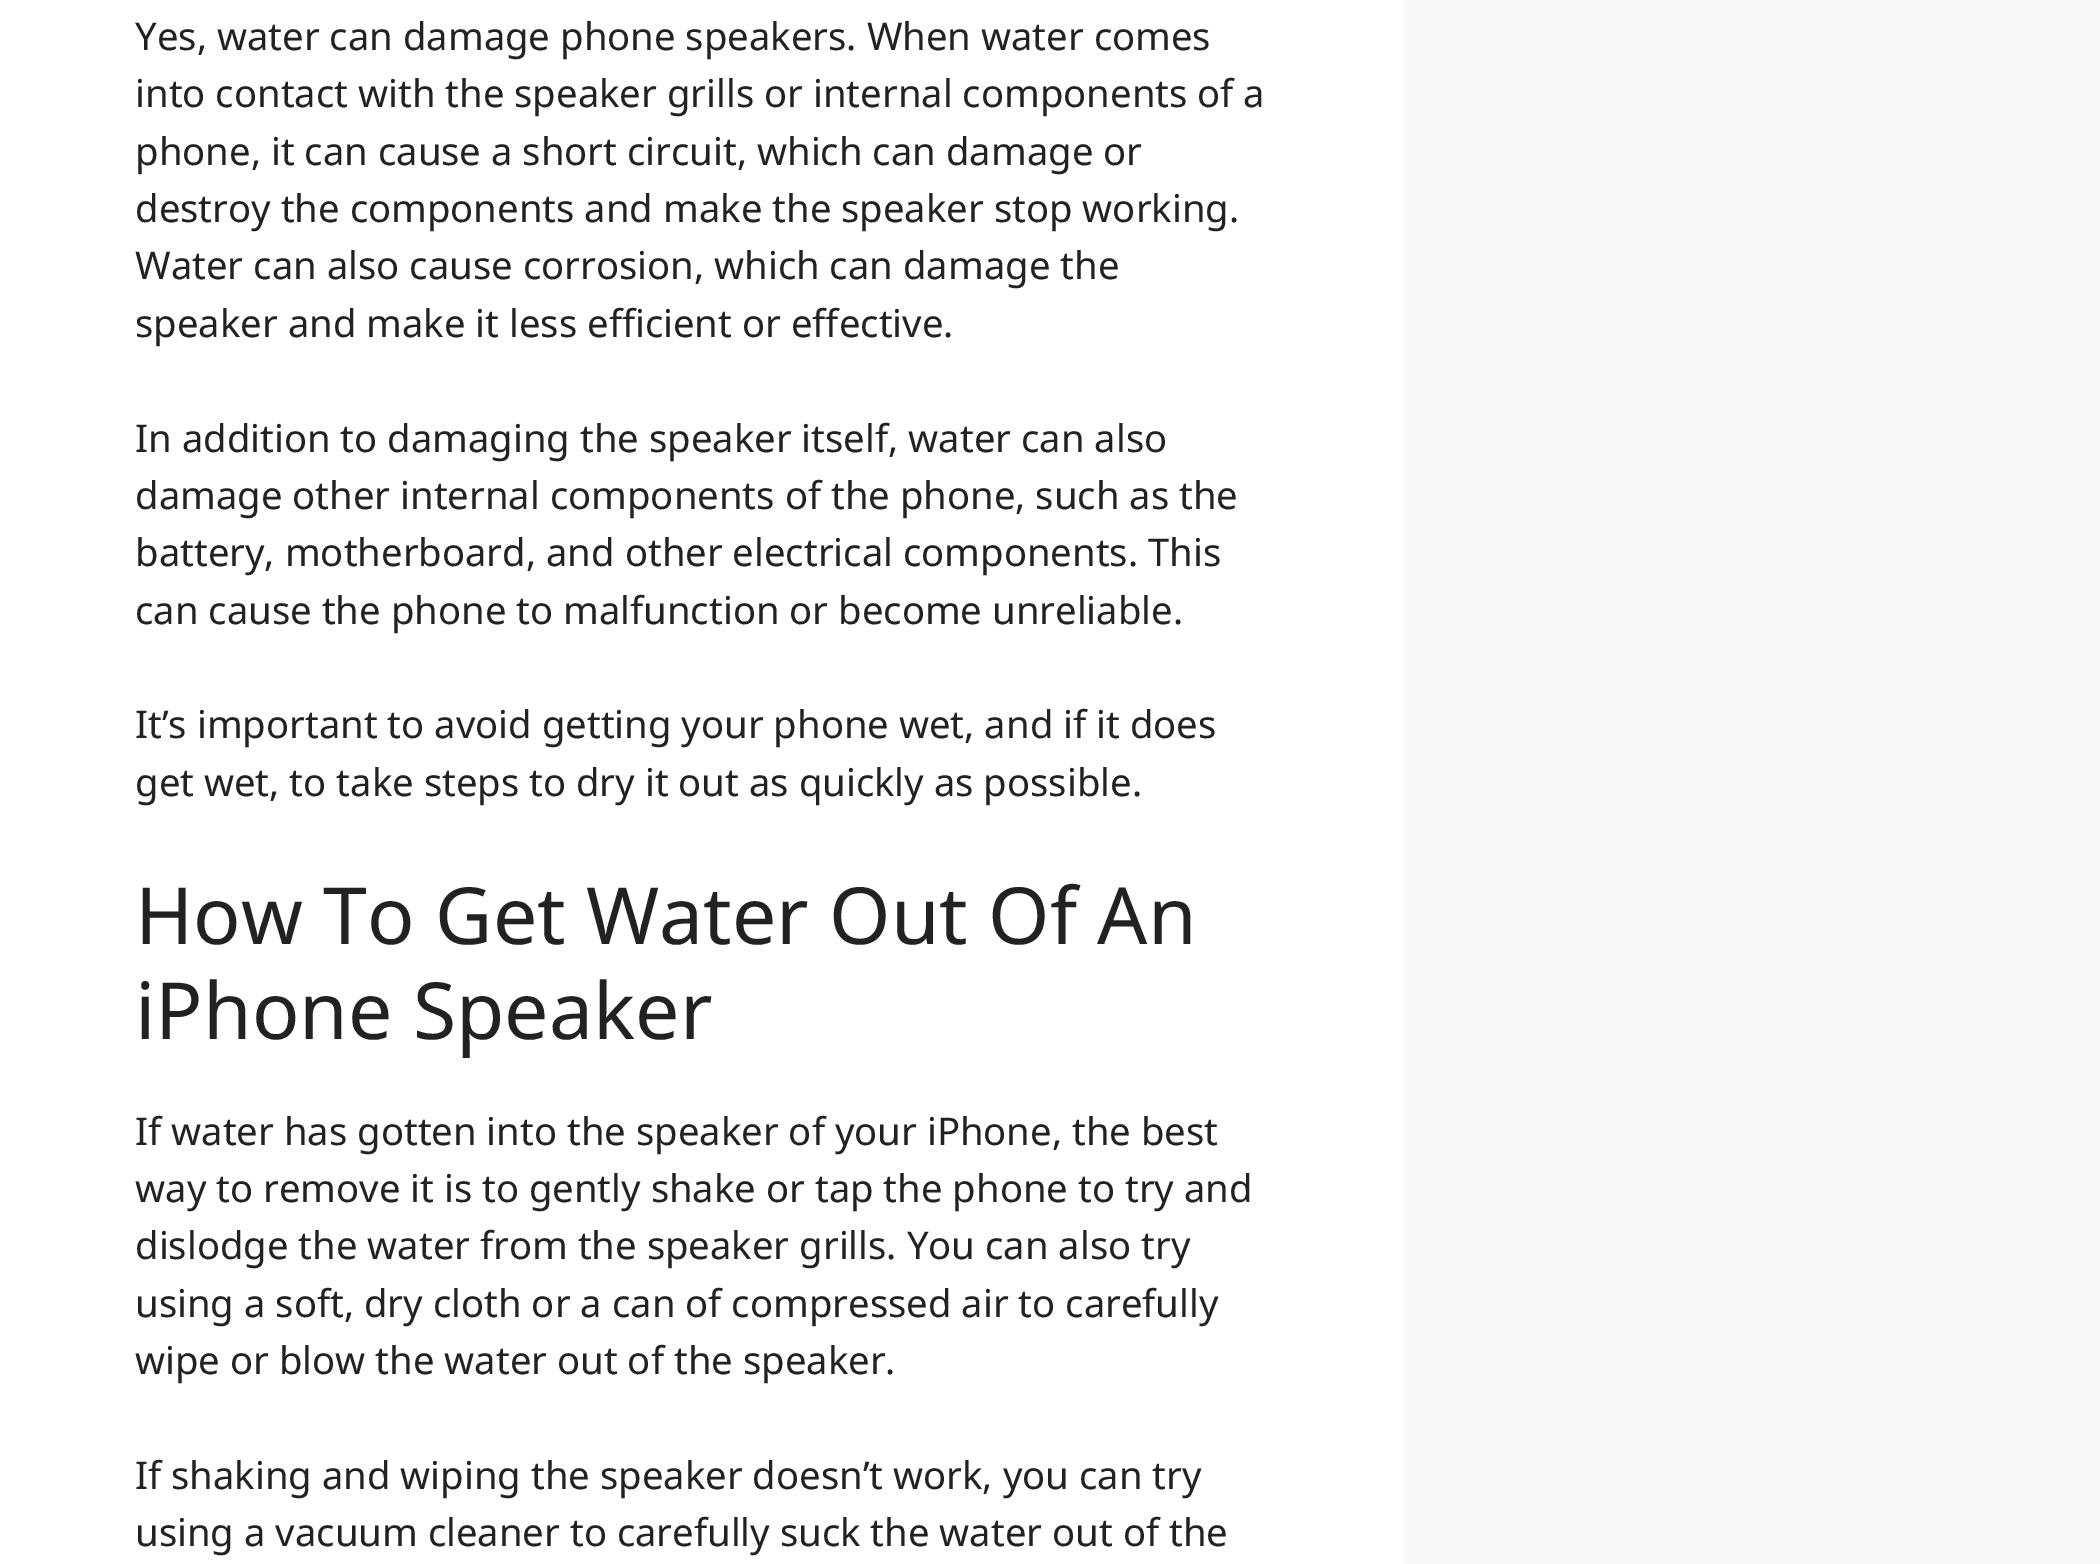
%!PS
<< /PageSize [2100 1564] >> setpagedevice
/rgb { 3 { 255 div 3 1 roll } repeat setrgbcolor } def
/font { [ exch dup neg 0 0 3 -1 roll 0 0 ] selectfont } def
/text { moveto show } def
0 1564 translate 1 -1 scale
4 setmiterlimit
247 248 249 rgb
0 0 2100 1564 rectfill
255 255 255 rgb
0 0 1404 1564 rectfill
/NotoSans-Regular 38.25 font
34 34 34 rgb
(Yes, water can damage phone speakers. When water comes) 135 50 text
(into contact with the speaker grills or internal components of a) 135 107 text
(phone, it can cause a short circuit, which can damage or) 135 165 text
(destroy the components and make the speaker stop working.) 135 222 text
(Water can also cause corrosion, which can damage the) 135 279 text
(speaker and make it less efficient or effective.) 135 337 text
(In addition to damaging the speaker itself, water can also) 135 452 text
(damage other internal components of the phone, such as the) 135 509 text
(battery, motherboard, and other electrical components. This) 135 566 text
(can cause the phone to malfunction or become unreliable.) 135 624 text
(It’s important to avoid getting your phone wet, and if it does) 135 738 text
(get wet, to take steps to dry it out as quickly as possible.) 135 796 text
/NotoSans-Regular 78.75 font
(How To Get Water Out Of An) 135 944 text
(iPhone Speaker) 135 1039 text
/NotoSans-Regular 38.25 font
(If water has gotten into the speaker of your iPhone, the best) 135 1145 text
(way to remove it is to gently shake or tap the phone to try and) 135 1202 text
(dislodge the water from the speaker grills. You can also try) 135 1259 text
(using a soft, dry cloth or a can of compressed air to carefully) 135 1317 text
(wipe or blow the water out of the speaker.) 135 1374 text
(If shaking and wiping the speaker doesn’t work, you can try) 135 1489 text
(using a vacuum cleaner to carefully suck the water out of the) 135 1546 text
showpage
